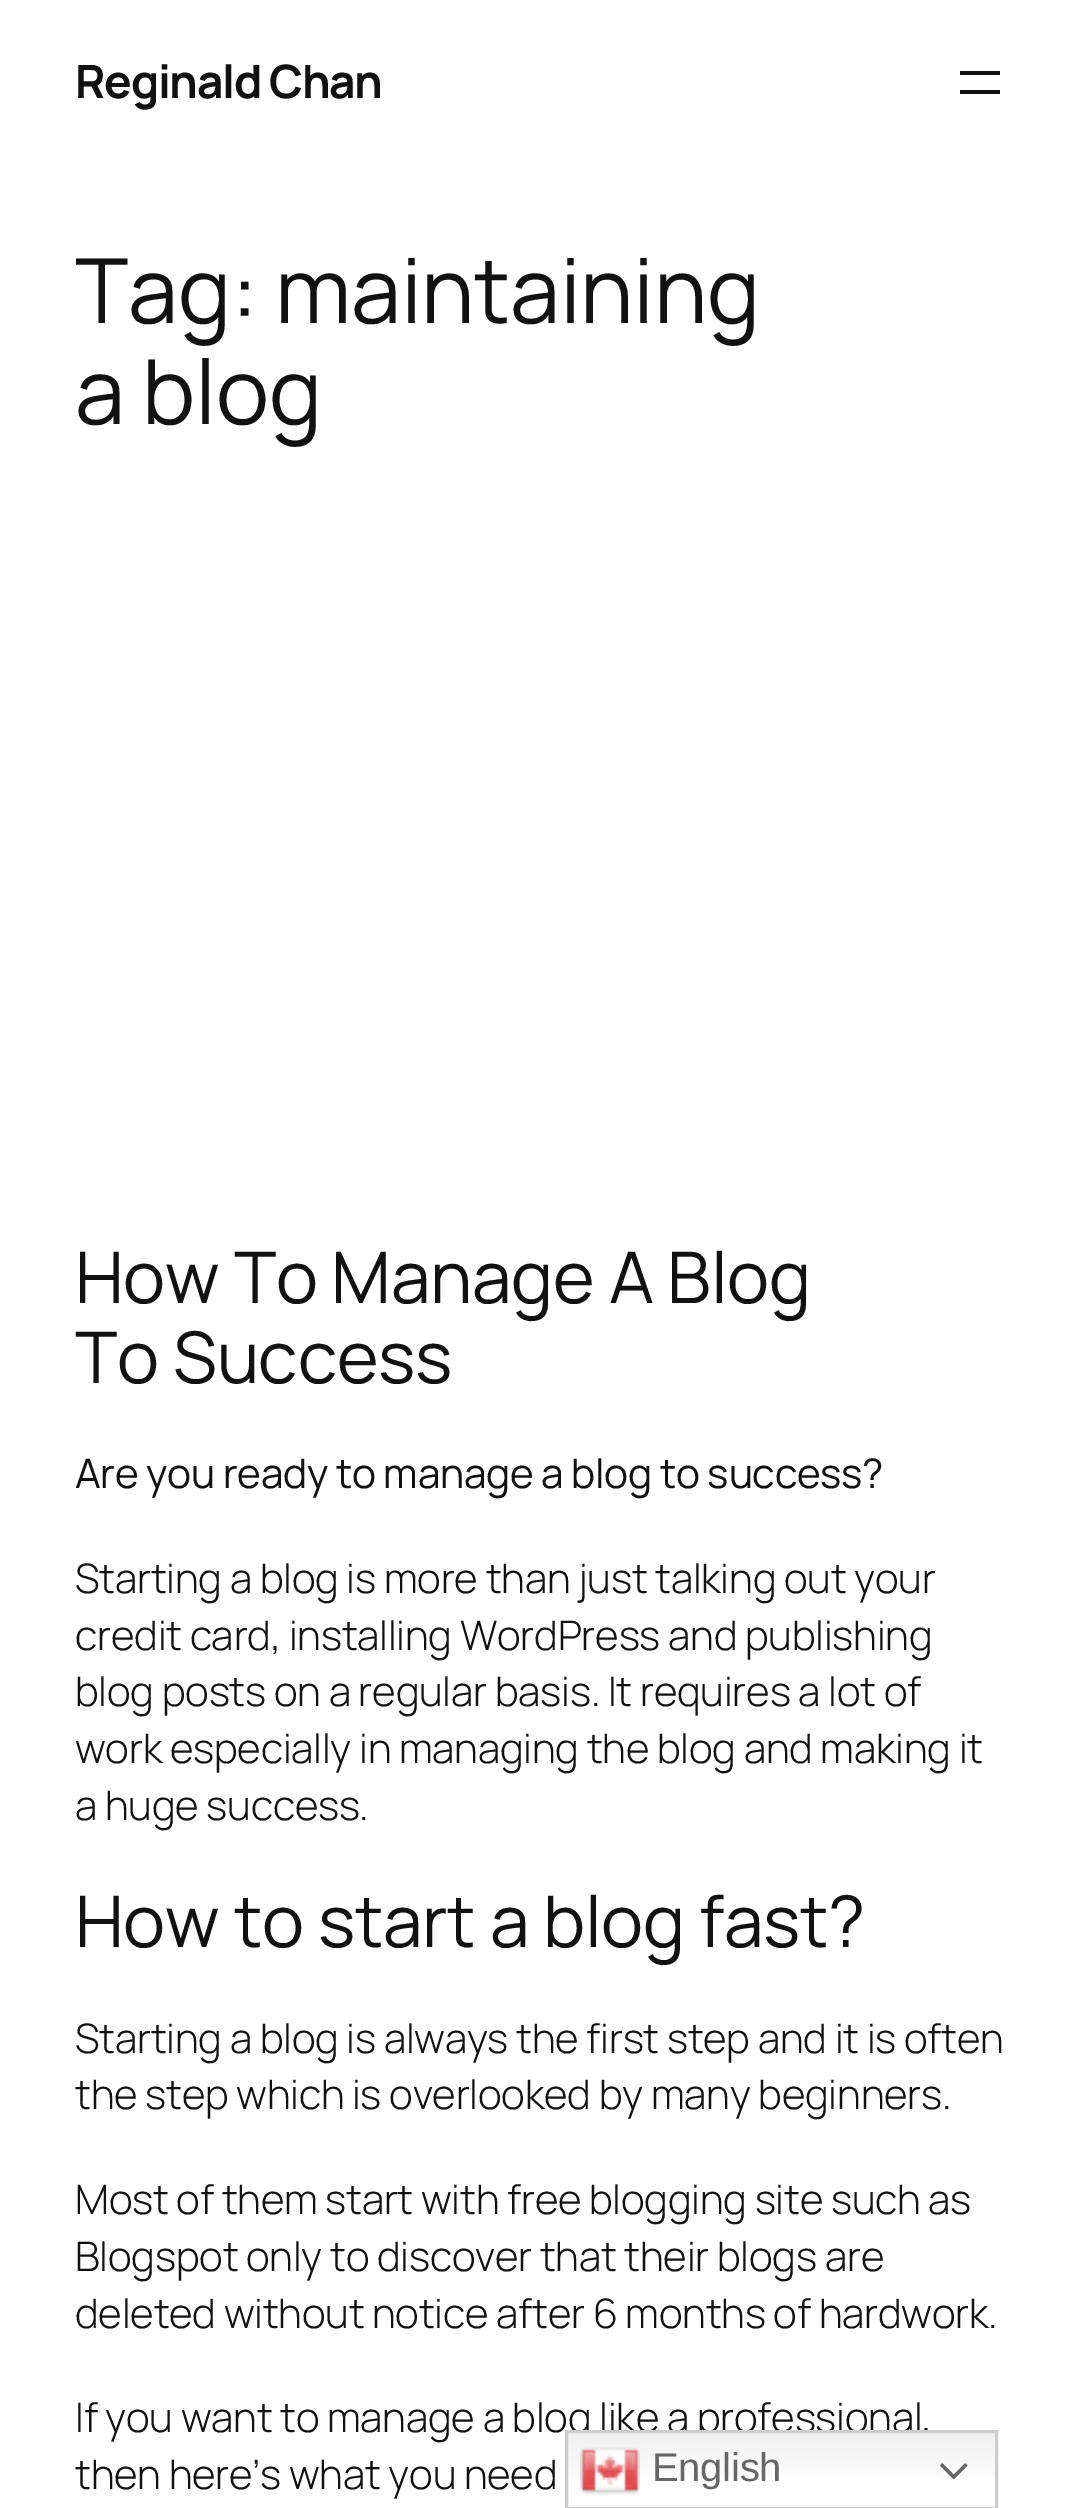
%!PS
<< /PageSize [1083 2508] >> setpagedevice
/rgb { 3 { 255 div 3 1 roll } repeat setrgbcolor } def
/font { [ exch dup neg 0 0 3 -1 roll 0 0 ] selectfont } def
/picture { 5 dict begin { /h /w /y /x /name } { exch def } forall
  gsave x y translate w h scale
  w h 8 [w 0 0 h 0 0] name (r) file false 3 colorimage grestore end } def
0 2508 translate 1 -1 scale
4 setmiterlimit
255 255 255 rgb
0 0 1083 2508 rectfill
17 17 17 rgb
960 71 40 4 rectfill
960 90 40 4 rectfill
/Manrope-Bold 46 font
75 98 moveto -1.25 0 (Reginald Chan) ashow
/Manrope-Regular 89.75 font
75 323 moveto -0.25 0 (Tag: maintaining) ashow
75 424 moveto -0.25 0 (a blog) ashow
/Manrope-Regular 71.1 font
75 1303 moveto -0.25 0 (How To Manage A Blog) ashow
75 1383 moveto -0.25 0 (To Success) ashow
/Manrope-Regular 40.6 font
75 1488 moveto -0.25 0 (Are you ready to manage a blog to success?) ashow
/Manrope-Light 40.6 font
75 1593 moveto -0.25 0 (Starting a blog is more than just talking out your) ashow
75 1650 moveto -0.25 0 (credit card, installing WordPress and publishing) ashow
75 1706 moveto -0.25 0 (blog posts on a regular basis. It requires a lot of) ashow
75 1763 moveto -0.25 0 (work especially in managing the blog and making it) ashow
75 1820 moveto -0.25 0 (a huge success.) ashow
/Manrope-Regular 71.1 font
75 1947 moveto -0.25 0 (How to start a blog fast?) ashow
/Manrope-Light 40.6 font
75 2053 moveto -0.25 0 (Starting a blog is always the first step and it is often) ashow
75 2109 moveto -0.25 0 (the step which is overlooked by many beginners.) ashow
75 2214 moveto -0.25 0 (Most of them start with free blogging site such as) ashow
75 2271 moveto -0.25 0 (Blogspot only to discover that their blogs are) ashow
75 2328 moveto -0.25 0 (deleted without notice after 6 months of hardwork.) ashow
75 2432 moveto -0.25 0 (If you want to manage a blog like a professional,) ashow
75 2489 moveto -0.25 0 (then here’s what you need) ashow
gsave 568 2433 moveto 427 0 rlineto 0 44 rlineto -427 0 rlineto closepath clip newpath
<< /ShadingType 2 /ColorSpace /DeviceRGB /Coords [781 2430 781 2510] /Extend [true true] /Function << /FunctionType 3 /Domain [0 1] /Functions [<< /FunctionType 2 /Domain [0 1] /C0 [0.937 0.937 0.937] /C1 [1 1 1] /N 1 >> << /FunctionType 2 /Domain [0 1] /C0 [1 1 1] /C1 [1 1 1] /N 1 >>] /Bounds [0.7] /Encode [0 1 0 1] >> >> shfill grestore
204 204 204 rgb
3 setlinewidth
566.5 2431.5 430 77 rectstroke
(img_01.rgb) 580 2447 60 48 picture
/LiberationSans-Regular 40 font
102 102 102 rgb
652 2481 moveto -0.25 0 (English) ashow
(img_02.rgb) 940 2463 28 17 picture
showpage
